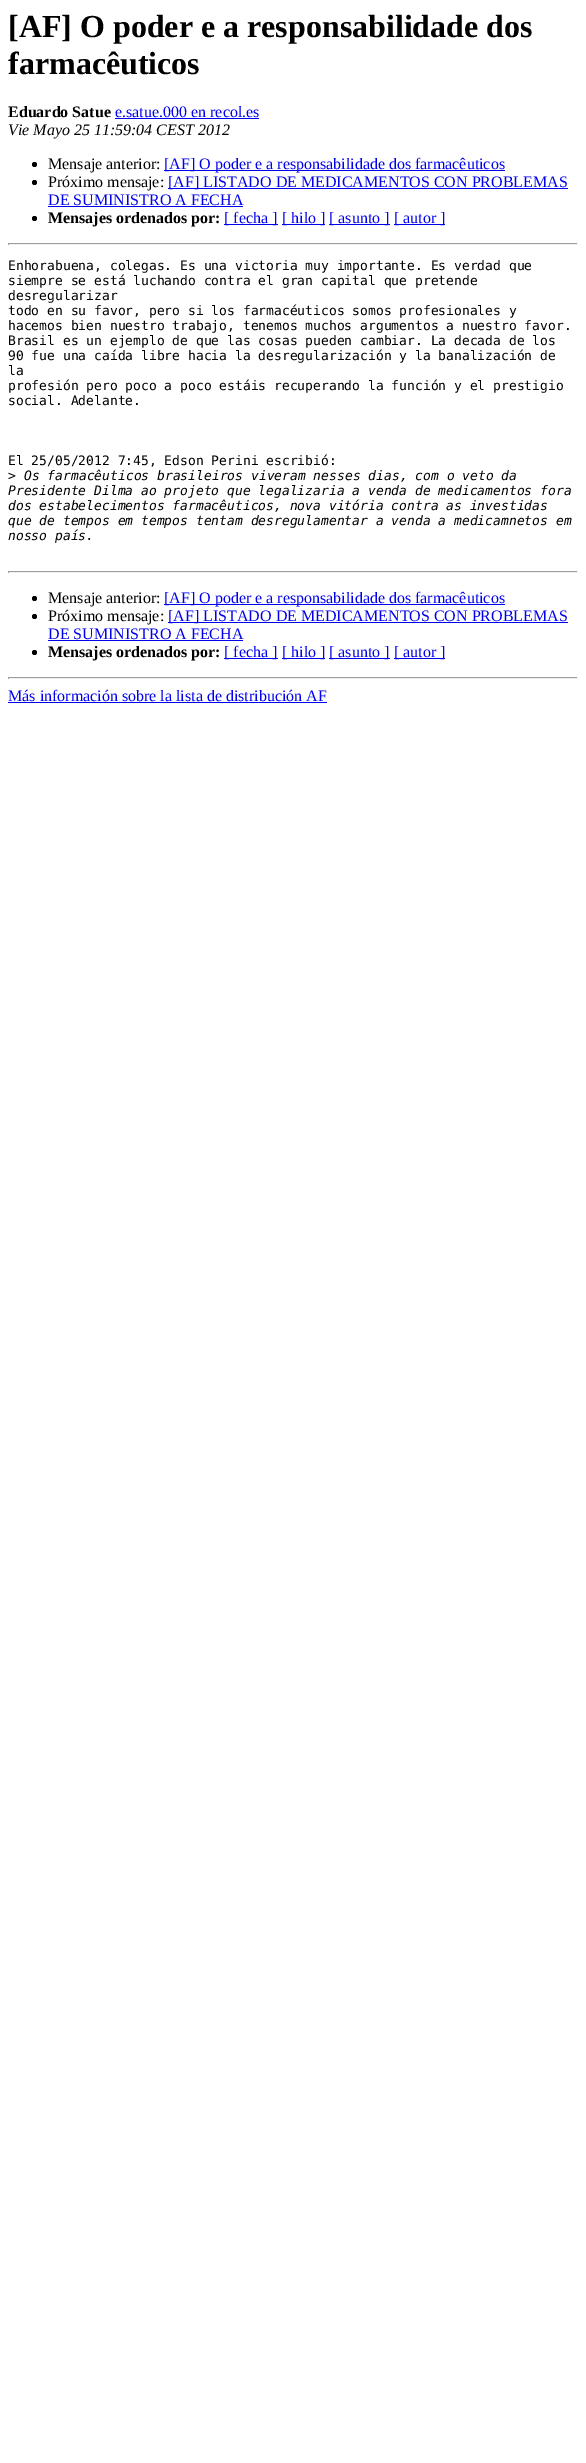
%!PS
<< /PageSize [586 2463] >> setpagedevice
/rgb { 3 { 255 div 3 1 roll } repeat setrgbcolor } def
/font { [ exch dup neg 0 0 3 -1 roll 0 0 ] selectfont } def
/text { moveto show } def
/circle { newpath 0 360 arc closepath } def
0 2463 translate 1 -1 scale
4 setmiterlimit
255 255 255 rgb
0 0 586 2463 rectfill
0 0 238 rgb
115 118 144 1 rectfill
0 0 0 rgb
34.5 164.5 2.5 circle fill
0 0 238 rgb
164 170 341 1 rectfill
0 0 0 rgb
34.5 182.5 2.5 circle fill
0 0 238 rgb
168 188 400 1 rectfill
48 206 195 1 rectfill
0 0 0 rgb
34.5 218.5 2.5 circle fill
0 0 238 rgb
224 224 54 1 rectfill
282 224 43 1 rectfill
329 224 61 1 rectfill
394 224 51 1 rectfill
159 159 159 rgb
8 243 570 1 rectfill
238 238 238 rgb
577 243 1 2 rectfill
8 244 570 1 rectfill
159 159 159 rgb
8 243 1 2 rectfill
8 571 570 1 rectfill
238 238 238 rgb
577 571 1 2 rectfill
8 572 570 1 rectfill
159 159 159 rgb
8 571 1 2 rectfill
0 0 0 rgb
34.5 598.5 2.5 circle fill
0 0 238 rgb
164 604 341 1 rectfill
0 0 0 rgb
34.5 616.5 2.5 circle fill
0 0 238 rgb
168 622 400 1 rectfill
48 640 195 1 rectfill
0 0 0 rgb
34.5 652.5 2.5 circle fill
0 0 238 rgb
224 658 54 1 rectfill
282 658 43 1 rectfill
329 658 61 1 rectfill
394 658 51 1 rectfill
159 159 159 rgb
8 677 570 1 rectfill
238 238 238 rgb
577 677 1 2 rectfill
8 678 570 1 rectfill
159 159 159 rgb
8 677 1 2 rectfill
0 0 238 rgb
8 702 319 1 rectfill
/LiberationSerif-Bold 32 font
0 0 0 rgb
([AF] O poder e a responsabilidade dos) 8 37 text
(farmacêuticos) 8 74 text
/LiberationSerif-Bold 16 font
(Eduardo Satue) 8 117 text
/LiberationSerif-Regular 16 font
0 0 238 rgb
(e.satue.000 en recol.es) 115 117 text
/LiberationSerif-Italic 16 font
0 0 0 rgb
(Vie Mayo 25 11:59:04 CEST 2012) 8 135 text
/LiberationSerif-Regular 16 font
(Mensaje anterior:) 48 169 text
0 0 238 rgb
([AF] O poder e a responsabilidade dos farmacêuticos) 164 169 text
0 0 0 rgb
(Próximo mensaje:) 48 187 text
0 0 238 rgb
([AF] LISTADO DE MEDICAMENTOS CON PROBLEMAS) 168 187 text
(DE SUMINISTRO A FECHA) 48 205 text
/LiberationSerif-Bold 16 font
0 0 0 rgb
(Mensajes ordenados por:) 48 223 text
/LiberationSerif-Regular 16 font
0 0 238 rgb
([ fecha ]) 224 223 text
([ hilo ]) 282 223 text
([ asunto ]) 329 223 text
([ autor ]) 394 223 text
/DejaVuSansMono-Regular 13 font
0 0 0 rgb
(Enhorabuena, colegas. Es una victoria muy importante. Es verdad que) 8 270 text
(siempre se está luchando contra el gran capital que pretende) 8 285 text
(desregularizar) 8 300 text
(todo en su favor, pero si los farmacéuticos somos profesionales y) 8 315 text
(hacemos bien nuestro trabajo, tenemos muchos argumentos a nuestro favor.) 8 330 text
(Brasil es un ejemplo de que las cosas pueden cambiar. La decada de los) 8 345 text
(90 fue una caída libre hacia la desregularización y la banalización de) 8 360 text
(la) 8 375 text
(profesión pero poco a poco estáis recuperando la función y el prestigio) 8 390 text
(social. Adelante.) 8 405 text
(El 25/05/2012 7:45, Edson Perini escribió:) 8 465 text
(>) 8 480 text
/DejaVuSansMono-Italic 13 font
(Os farmacêuticos brasileiros viveram nesses dias, com o veto da) 24 480 text
(Presidente Dilma ao projeto que legalizaria a venda de medicamentos fora) 8 495 text
(dos estabelecimentos farmacêuticos, nova vitória contra as investidas) 8 510 text
(que de tempos em tempos tentam desregulamentar a venda a medicamnetos em) 8 525 text
(nosso país.) 8 540 text
/LiberationSerif-Regular 16 font
(Mensaje anterior:) 48 603 text
0 0 238 rgb
([AF] O poder e a responsabilidade dos farmacêuticos) 164 603 text
0 0 0 rgb
(Próximo mensaje:) 48 621 text
0 0 238 rgb
([AF] LISTADO DE MEDICAMENTOS CON PROBLEMAS) 168 621 text
(DE SUMINISTRO A FECHA) 48 639 text
/LiberationSerif-Bold 16 font
0 0 0 rgb
(Mensajes ordenados por:) 48 657 text
/LiberationSerif-Regular 16 font
0 0 238 rgb
([ fecha ]) 224 657 text
([ hilo ]) 282 657 text
([ asunto ]) 329 657 text
([ autor ]) 394 657 text
(Más información sobre la lista de distribución AF) 8 701 text
showpage
